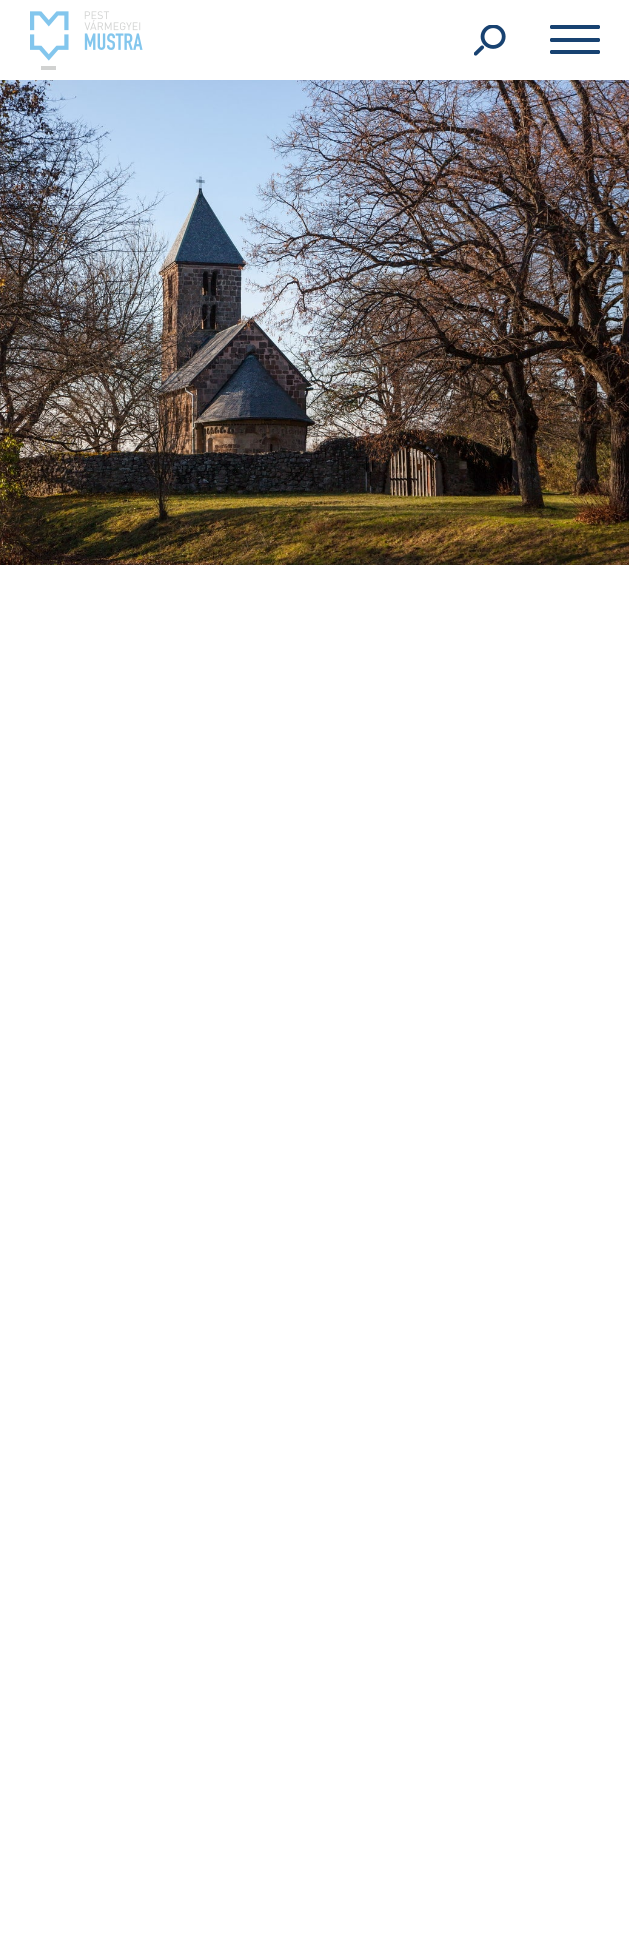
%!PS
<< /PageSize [629 1938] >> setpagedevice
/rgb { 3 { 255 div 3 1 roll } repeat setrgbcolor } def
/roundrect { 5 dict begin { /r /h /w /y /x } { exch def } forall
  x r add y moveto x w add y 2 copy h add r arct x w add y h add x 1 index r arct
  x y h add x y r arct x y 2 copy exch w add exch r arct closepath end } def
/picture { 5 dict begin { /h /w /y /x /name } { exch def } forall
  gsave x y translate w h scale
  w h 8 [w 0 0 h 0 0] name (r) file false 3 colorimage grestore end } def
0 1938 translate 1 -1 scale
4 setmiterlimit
255 255 255 rgb
0 0 629 1938 rectfill
(img_01.rgb) 30 11 113 59 picture
(img_02.rgb) 474 25 32 31 picture
24 66 113 rgb
550 38 50 4 2 roundrect fill
550 25 50 4 2 roundrect fill
550 50 50 4 2 roundrect fill
(img_03.rgb) 0 80 629 485 picture
showpage
